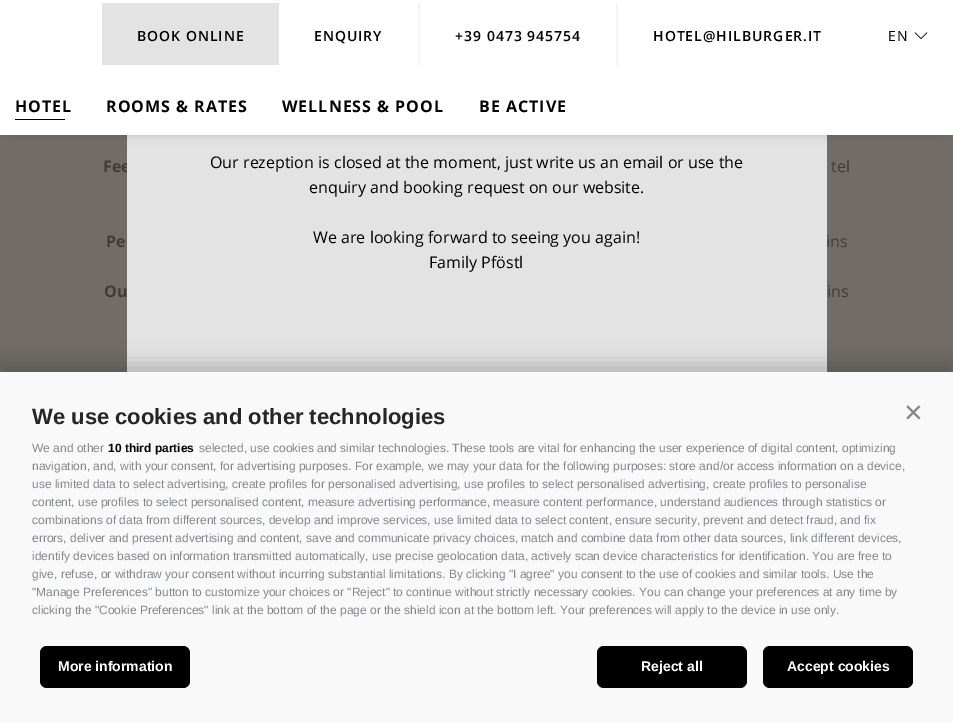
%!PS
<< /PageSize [953 723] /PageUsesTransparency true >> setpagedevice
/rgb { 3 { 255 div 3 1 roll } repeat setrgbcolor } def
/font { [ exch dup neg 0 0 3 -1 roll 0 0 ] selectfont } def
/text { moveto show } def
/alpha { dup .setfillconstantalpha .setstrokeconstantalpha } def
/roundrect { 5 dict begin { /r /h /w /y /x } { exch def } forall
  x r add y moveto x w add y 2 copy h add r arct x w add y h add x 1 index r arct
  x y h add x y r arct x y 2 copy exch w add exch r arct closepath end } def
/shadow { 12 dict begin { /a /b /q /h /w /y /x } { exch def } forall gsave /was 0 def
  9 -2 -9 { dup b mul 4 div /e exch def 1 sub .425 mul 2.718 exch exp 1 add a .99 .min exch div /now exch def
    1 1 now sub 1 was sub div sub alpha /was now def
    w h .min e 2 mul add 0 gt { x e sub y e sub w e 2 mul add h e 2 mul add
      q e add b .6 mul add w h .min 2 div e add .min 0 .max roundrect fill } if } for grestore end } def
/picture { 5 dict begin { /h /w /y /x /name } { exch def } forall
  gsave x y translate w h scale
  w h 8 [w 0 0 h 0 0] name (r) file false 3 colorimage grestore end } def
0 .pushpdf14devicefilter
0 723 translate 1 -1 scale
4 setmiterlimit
113 108 104 rgb
0 0 953 723 rectfill
/OpenSans-Bold 16 font
65 59 55 rgb
(Fee) 103 172 text
227 227 227 rgb
127 135 700 237 rectfill
0 0 0 rgb
10 20 933 115 0 5 0.15 shadow
255 255 255 rgb
0 0 953 135 rectfill
(img_01.rgb) 914 32 14 7 picture
/OpenSans-Regular 14 font
0 0 0 rgb
888 41 moveto 1 0 (EN) ashow
/OpenSans-Bold 16 font
479 112 moveto 1 0 (BE ACTIVE) ashow
282 112 moveto 1 0 (WELLNESS & POOL) ashow
106 112 moveto 1 0 (ROOMS & RATES) ashow
15 112 moveto 1 0 (HOTEL) ashow
15 119 50 1 rectfill
/OpenSans-SemiBold 14 font
653 41 moveto 1 0 (HOTEL@HILBURGER.IT) ashow
455 41 moveto 1 0 (+39 0473 945754) ashow
244 244 244 rgb
616 3 2 62 rectfill
0 0 0 rgb
314 41 moveto 1 0 (ENQUIRY) ashow
244 244 244 rgb
418 3 2 62 rectfill
227 227 227 rgb
102 3 177 62 rectfill
0 0 0 rgb
137 41 moveto 1 0 (BOOK ONLINE) ashow
/OpenSans-Regular 16 font
(Family Pföstl) 429 268 text
(We are looking forward to seeing you again!) 313 243 text
(enquiry and booking request on our website.) 309 193 text
(Our rezeption is closed at the moment, just write us an email or use the) 210 168 text
65 59 55 rgb
(tel) 831 172 text
/OpenSans-Bold 16 font
(Pe) 106 247 text
/OpenSans-Regular 16 font
(ins) 826 247 text
/OpenSans-Bold 16 font
(Ou) 104 297 text
/OpenSans-Regular 16 font
(ins) 827 297 text
0 0 0 rgb
0 364 953 351 0 10 0.2 shadow
249 249 249 rgb
0 372 953 351 rectfill
/LiberationSans-Bold 22 font
38 38 40 rgb
(We use cookies and other technologies) 32 424 text
/LiberationSans-Regular 32 font
128 136 140 rgb
(×) 904 423 text
/LiberationSans-Regular 12 font
(We and other) 32 452 text
/LiberationSans-Bold 12 font
0 0 0 rgb
(10 third parties) 108 452 text
/LiberationSans-Regular 12 font
128 136 140 rgb
(selected, use cookies and similar technologies. These tools are vital for enhancing the user experience of digital content, optimizing) 199 452 text
(navigation, and, with your consent, for advertising purposes. For example, we may your data for the following purposes: store and/or access information on a device,) 32 470 text
(use limited data to select advertising, create profiles for personalised advertising, use profiles to select personalised advertising, create profiles to personalise) 32 488 text
(content, use profiles to select personalised content, measure advertising performance, measure content performance, understand audiences through statistics or) 32 506 text
(combinations of data from different sources, develop and improve services, use limited data to select content, ensure security, prevent and detect fraud, and fix) 32 524 text
(errors, deliver and present advertising and content, save and communicate privacy choices, match and combine data from other data sources, link different devices,) 32 542 text
(identify devices based on information transmitted automatically, use precise geolocation data, actively scan device characteristics for identification. You are free to) 32 560 text
(give, refuse, or withdraw your consent without incurring substantial limitations. By clicking "I agree" you consent to the use of cookies and similar tools. Use the) 32 578 text
("Manage Preferences" button to customize your choices or "Reject" to continue without strictly necessary cookies. You can change your preferences at any time by) 32 596 text
(clicking the "Cookie Preferences" link at the bottom of the page or the shield icon at the bottom left. Your preferences will apply to the device in use only.) 32 614 text
0 0 0 rgb
40 646 150 42 7 roundrect fill
/LiberationSans-Bold 14 font
255 255 255 rgb
(More information) 58 671 text
0 0 0 rgb
597 646 150 42 7 roundrect fill
255 255 255 rgb
(Reject all) 641 671 text
0 0 0 rgb
763 646 150 42 7 roundrect fill
255 255 255 rgb
(Accept cookies) 787 671 text
.poppdf14devicefilter showpage
